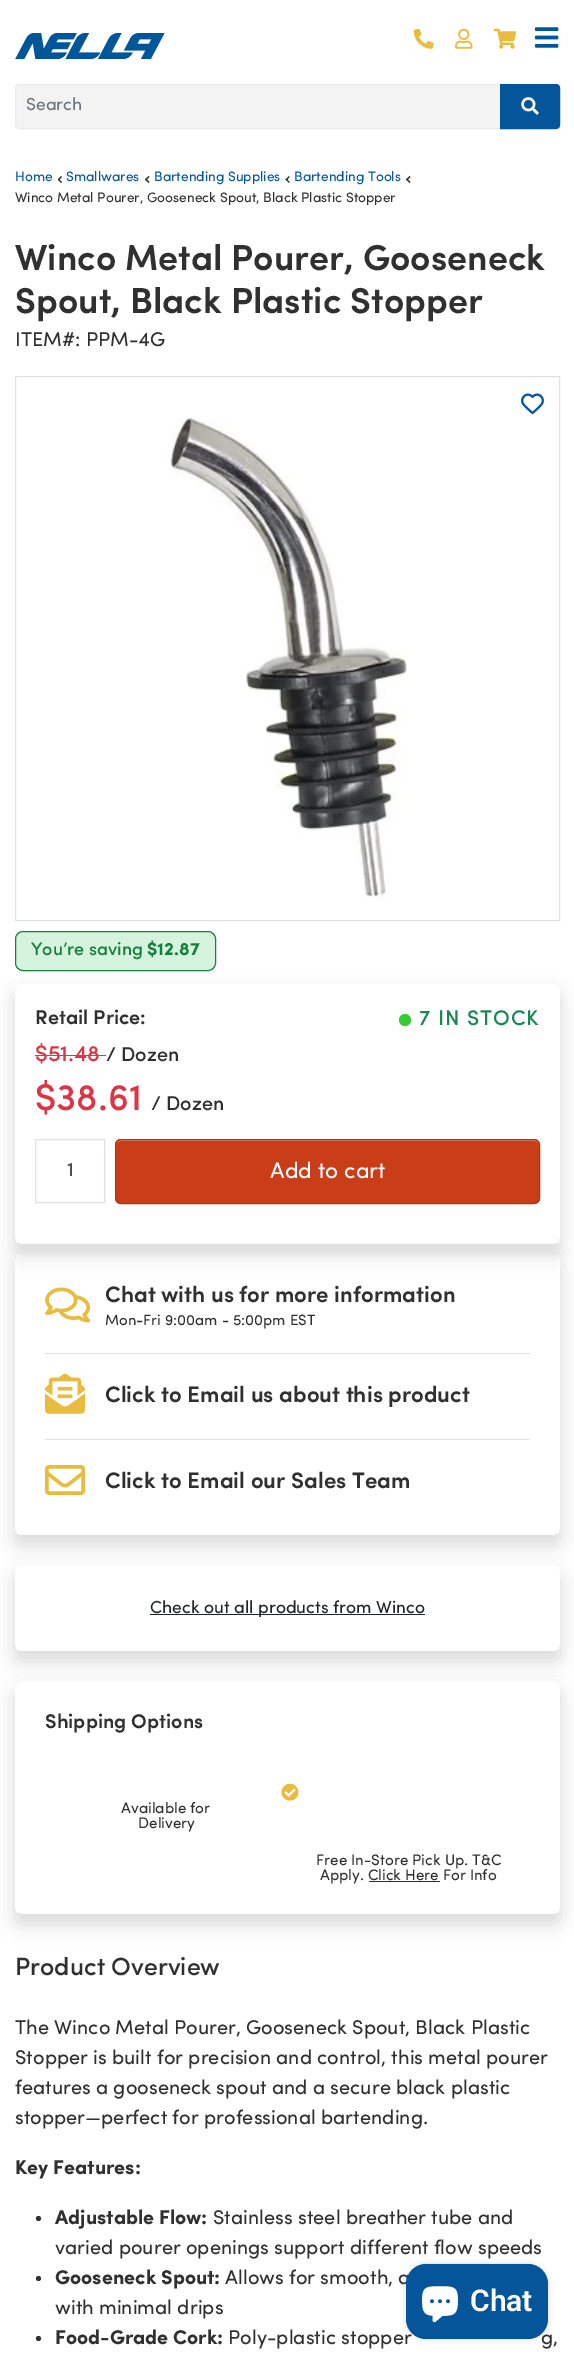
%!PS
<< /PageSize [574 2364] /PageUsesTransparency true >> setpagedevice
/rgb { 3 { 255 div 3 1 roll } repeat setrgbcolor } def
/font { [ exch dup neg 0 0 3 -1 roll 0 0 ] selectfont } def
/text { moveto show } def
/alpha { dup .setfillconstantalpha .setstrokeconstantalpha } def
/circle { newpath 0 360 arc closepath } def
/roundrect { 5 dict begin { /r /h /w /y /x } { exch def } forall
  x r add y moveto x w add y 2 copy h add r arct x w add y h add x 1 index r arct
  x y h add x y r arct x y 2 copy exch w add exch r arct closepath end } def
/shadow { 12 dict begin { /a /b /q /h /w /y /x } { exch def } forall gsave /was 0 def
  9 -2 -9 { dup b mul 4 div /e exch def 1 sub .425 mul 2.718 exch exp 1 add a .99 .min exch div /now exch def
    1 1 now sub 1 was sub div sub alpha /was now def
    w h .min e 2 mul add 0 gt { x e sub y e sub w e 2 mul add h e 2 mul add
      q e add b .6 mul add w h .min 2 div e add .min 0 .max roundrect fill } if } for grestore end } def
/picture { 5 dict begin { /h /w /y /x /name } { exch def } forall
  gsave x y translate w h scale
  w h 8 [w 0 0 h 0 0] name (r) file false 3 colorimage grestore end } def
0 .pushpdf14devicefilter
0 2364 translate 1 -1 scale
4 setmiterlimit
255 255 255 rgb
0 0 574 2364 rectfill
(img_01.rgb) 15 33 150 26 picture
(img_02.rgb) 413 28 21 21 picture
(img_03.rgb) 455 28 18 21 picture
(img_04.rgb) 493 28 24 21 picture
(img_05.rgb) 535 27 24 21 picture
243 243 243 rgb
18.5 85 moveto 481.5 0 rlineto 0 43 rlineto -481.5 0 rlineto -1.5 0 -2.5 -1 -2.5 -2.5 rcurveto 0 -38 rlineto 0 -1.5 1 -2.5 2.5 -2.5 rcurveto closepath fill
234 234 234 rgb
19 84.5 moveto 481.5 0 rlineto 0 44 rlineto -481.5 0 rlineto -2 0 -3.5 -1.5 -3.5 -3.5 rcurveto 0 -37 rlineto 0 -2 1.5 -3.5 3.5 -3.5 rcurveto closepath stroke
5 85 154 rgb
500.5 84.5 moveto 55.5 0 rlineto 2 0 3.5 1.5 3.5 3.5 rcurveto 0 37 rlineto 0 2 -1.5 3.5 -3.5 3.5 rcurveto -55.5 0 rlineto closepath gsave fill grestore
stroke
(img_06.rgb) 521 97 18 18 picture
48 48 48 rgb
61 183 moveto -3 -3.5 rlineto 0.5 -1 rlineto 3.5 3.5 rlineto closepath fill
58.5 180.5 moveto -0.5 -1 rlineto 3 -3.5 rlineto 1 1 rlineto closepath fill
148.5 183 moveto -3.5 -3.5 rlineto 1 -1 rlineto 3.5 3.5 rlineto closepath fill
146 180.5 moveto -1 -1 rlineto 3.5 -3.5 rlineto 1 1 rlineto closepath fill
289 183 moveto -3.5 -3.5 rlineto 1 -1 rlineto 3 3.5 rlineto closepath fill
286.5 180.5 moveto -1 -1 rlineto 3.5 -3.5 rlineto 0.5 1 rlineto closepath fill
409.5 183 moveto -3.5 -3.5 rlineto 1 -1 rlineto 3.5 3.5 rlineto closepath fill
407 180.5 moveto -1 -1 rlineto 3.5 -3.5 rlineto 1 1 rlineto closepath fill
222 226 230 rgb
15.5 376.5 544 544 rectstroke
(img_07.rgb) 521 393 23 21 picture
(img_08.rgb) 168 416 239 482 picture
214 244 221 rgb
15.5 931.5 200 39 7.5 roundrect gsave fill grestore
21 128 61 rgb
stroke
gsave
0 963 moveto 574 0 rlineto 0 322 rlineto -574 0 rlineto closepath 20 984 moveto 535 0 rlineto 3 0 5 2 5 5 rcurveto 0 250 rlineto 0 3 -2 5 -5 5 rcurveto -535 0 rlineto -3 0 -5 -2 -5 -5 rcurveto 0 -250 rlineto 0 -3 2 -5 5 -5 rcurveto closepath eoclip newpath
0 0 0 rgb
15 994 545 260 5 10 0.15 shadow
grestore
220 53 69 rgb
35 1055 71 1 rectfill
50 205 50 rgb
405 1020 6 circle fill
222 226 230 rgb
35.5 1139.5 69 63 rectstroke
201 62 25 rgb
115 1139 425 65 6 roundrect fill
207 134 108 rgb
121 1141 moveto 413 0 rlineto 3 0 5 2 5 5 rcurveto 0 -3 -2 -6 -5 -6 rcurveto -413 0 rlineto -3 0 -5 3 -5 6 rcurveto 0 -3 2 -5 5 -5 rcurveto closepath fill
188 48 9 rgb
115.5 1139.5 424 64 5.5 roundrect stroke
gsave
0 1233 moveto 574 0 rlineto 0 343 rlineto -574 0 rlineto closepath 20 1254 moveto 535 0 rlineto 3 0 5 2 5 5 rcurveto 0 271 rlineto 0 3 -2 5 -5 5 rcurveto -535 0 rlineto -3 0 -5 -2 -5 -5 rcurveto 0 -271 rlineto 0 -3 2 -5 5 -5 rcurveto closepath eoclip newpath
0 0 0 rgb
15 1264 545 281 5 10 0.15 shadow
grestore
222 226 230 rgb
45 1353 485 1 rectfill
(img_09.rgb) 45 1287 46 36 picture
45 1439 485 1 rectfill
(img_10.rgb) 45 1373 40 41 picture
(img_11.rgb) 45 1465 40 30 picture
gsave
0 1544 moveto 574 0 rlineto 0 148 rlineto -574 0 rlineto closepath 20 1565 moveto 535 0 rlineto 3 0 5 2 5 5 rcurveto 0 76 rlineto 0 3 -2 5 -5 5 rcurveto -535 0 rlineto -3 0 -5 -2 -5 -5 rcurveto 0 -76 rlineto 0 -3 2 -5 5 -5 rcurveto closepath eoclip newpath
0 0 0 rgb
15 1575 545 86 5 10 0.15 shadow
grestore
33 37 41 rgb
150 1614 275 1 rectfill
gsave
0 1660 moveto 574 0 rlineto 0 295 rlineto -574 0 rlineto closepath 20 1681 moveto 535 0 rlineto 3 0 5 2 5 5 rcurveto 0 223 rlineto 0 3 -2 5 -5 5 rcurveto -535 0 rlineto -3 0 -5 -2 -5 -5 rcurveto 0 -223 rlineto 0 -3 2 -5 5 -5 rcurveto closepath eoclip newpath
0 0 0 rgb
15 1691 545 233 5 10 0.15 shadow
grestore
(img_12.rgb) 281 1783 18 18 picture
48 48 48 rgb
369 1881 71 1 rectfill
38.5 2218.5 2.5 circle fill
38.5 2278.5 2.5 circle fill
38.5 2338.5 2.5 circle fill
0 0 0 rgb
406 2264 142 75 20 3 0.15 shadow
/Sofia-Regular 17.5 font
108 117 125 rgb
(Search) 26 110 text
/Sofia-Regular 13.75 font
5 85 154 rgb
(Home) 15 181 text
(Smallwares) 66 181 text
(Bartending Supplies) 154 181 text
(Bartending Tools) 294 181 text
48 48 48 rgb
(Winco Metal Pourer, Gooseneck Spout, Black Plastic Stopper) 15 202 text
/Sofia-SemiBold 36.1 font
(Winco Metal Pourer, Gooseneck) 15 270 text
(Spout, Black Plastic Stopper) 15 313 text
/Sofia-Regular 20 font
(ITEM#: PPM-4G) 15 346 text
/Sofia-Medium 18 font
21 128 61 rgb
(You’re saving) 31 955 text
/Sofia-Bold 18 font
($12.87) 147 955 text
/Sofia-SemiBold 20 font
48 48 48 rgb
(Retail Price:) 35 1024 text
/Sofia-Medium 22.5 font
220 53 69 rgb
($51.48) 35 1061 text
/Sofia-Medium 20 font
48 48 48 rgb
(/ Dozen) 106 1061 text
/Sofia-Medium 37.5 font
220 53 69 rgb
($38.61) 35 1110 text
/Sofia-Medium 20 font
48 48 48 rgb
(/ Dozen) 151 1110 text
/Sofia-Medium 21.25 font
25 135 84 rgb
419 1025 moveto 1 0 (7 IN STOCK) ashow
/Sofia-Medium 20 font
79 79 79 rgb
(1) 67 1176 text
/Sofia-Regular 22.5 font
255 255 255 rgb
(Add to cart) 270 1178 text
/Sofia-SemiBold 22.5 font
48 48 48 rgb
(Chat with us for more information) 105 1302 text
/Sofia-Regular 15 font
(Mon-Fri 9:00am - 5:00pm EST) 105 1325 text
/Sofia-SemiBold 22.5 font
(Click to Email us about this product) 105 1402 text
(Click to Email our Sales Team) 105 1488 text
/Sofia-Regular 17.5 font
33 37 41 rgb
(Check out all products from Winco) 150 1613 text
/Sofia-SemiBold 20 font
48 48 48 rgb
(Shipping Options) 45 1728 text
/Sofia-Regular 15.25 font
(Available for) 121 1813 text
(Delivery) 138 1828 text
(Free In-Store Pick Up. T&C) 316 1865 text
(Apply. Click Here For Info) 320 1880 text
/Sofia-Medium 25 font
(Product Overview) 15 1975 text
/Sofia-Regular 20 font
(The Winco Metal Pourer, Gooseneck Spout, Black Plastic) 15 2034 text
(Stopper is built for precision and control, this metal pourer) 15 2064 text
(features a gooseneck spout and a secure black plastic) 15 2094 text
(stopper—perfect for professional bartending.) 15 2124 text
/Sofia-Bold 20 font
(Key Features:) 15 2174 text
(Adjustable Flow:) 55 2224 text
/Sofia-Regular 20 font
(Stainless steel breather tube and) 213 2224 text
(varied pourer openings support different flow speeds) 55 2254 text
/Sofia-Bold 20 font
(Gooseneck Spout:) 55 2284 text
/Sofia-Regular 20 font
(Allows for smooth, a) 225 2284 text
(with minimal drips) 55 2314 text
/Sofia-Bold 20 font
(Food-Grade Cork:) 55 2344 text
/Sofia-Regular 20 font
(Poly-plastic stopper) 228 2344 text
(g,) 541 2344 text
5 85 154 rgb
406 2264 142 75 20 roundrect fill
(img_13.rgb) 422 2286 36 37 picture
/Roboto-SemiBold 30 font
255 255 255 rgb
(Chat) 470 2311 text
.poppdf14devicefilter showpage
